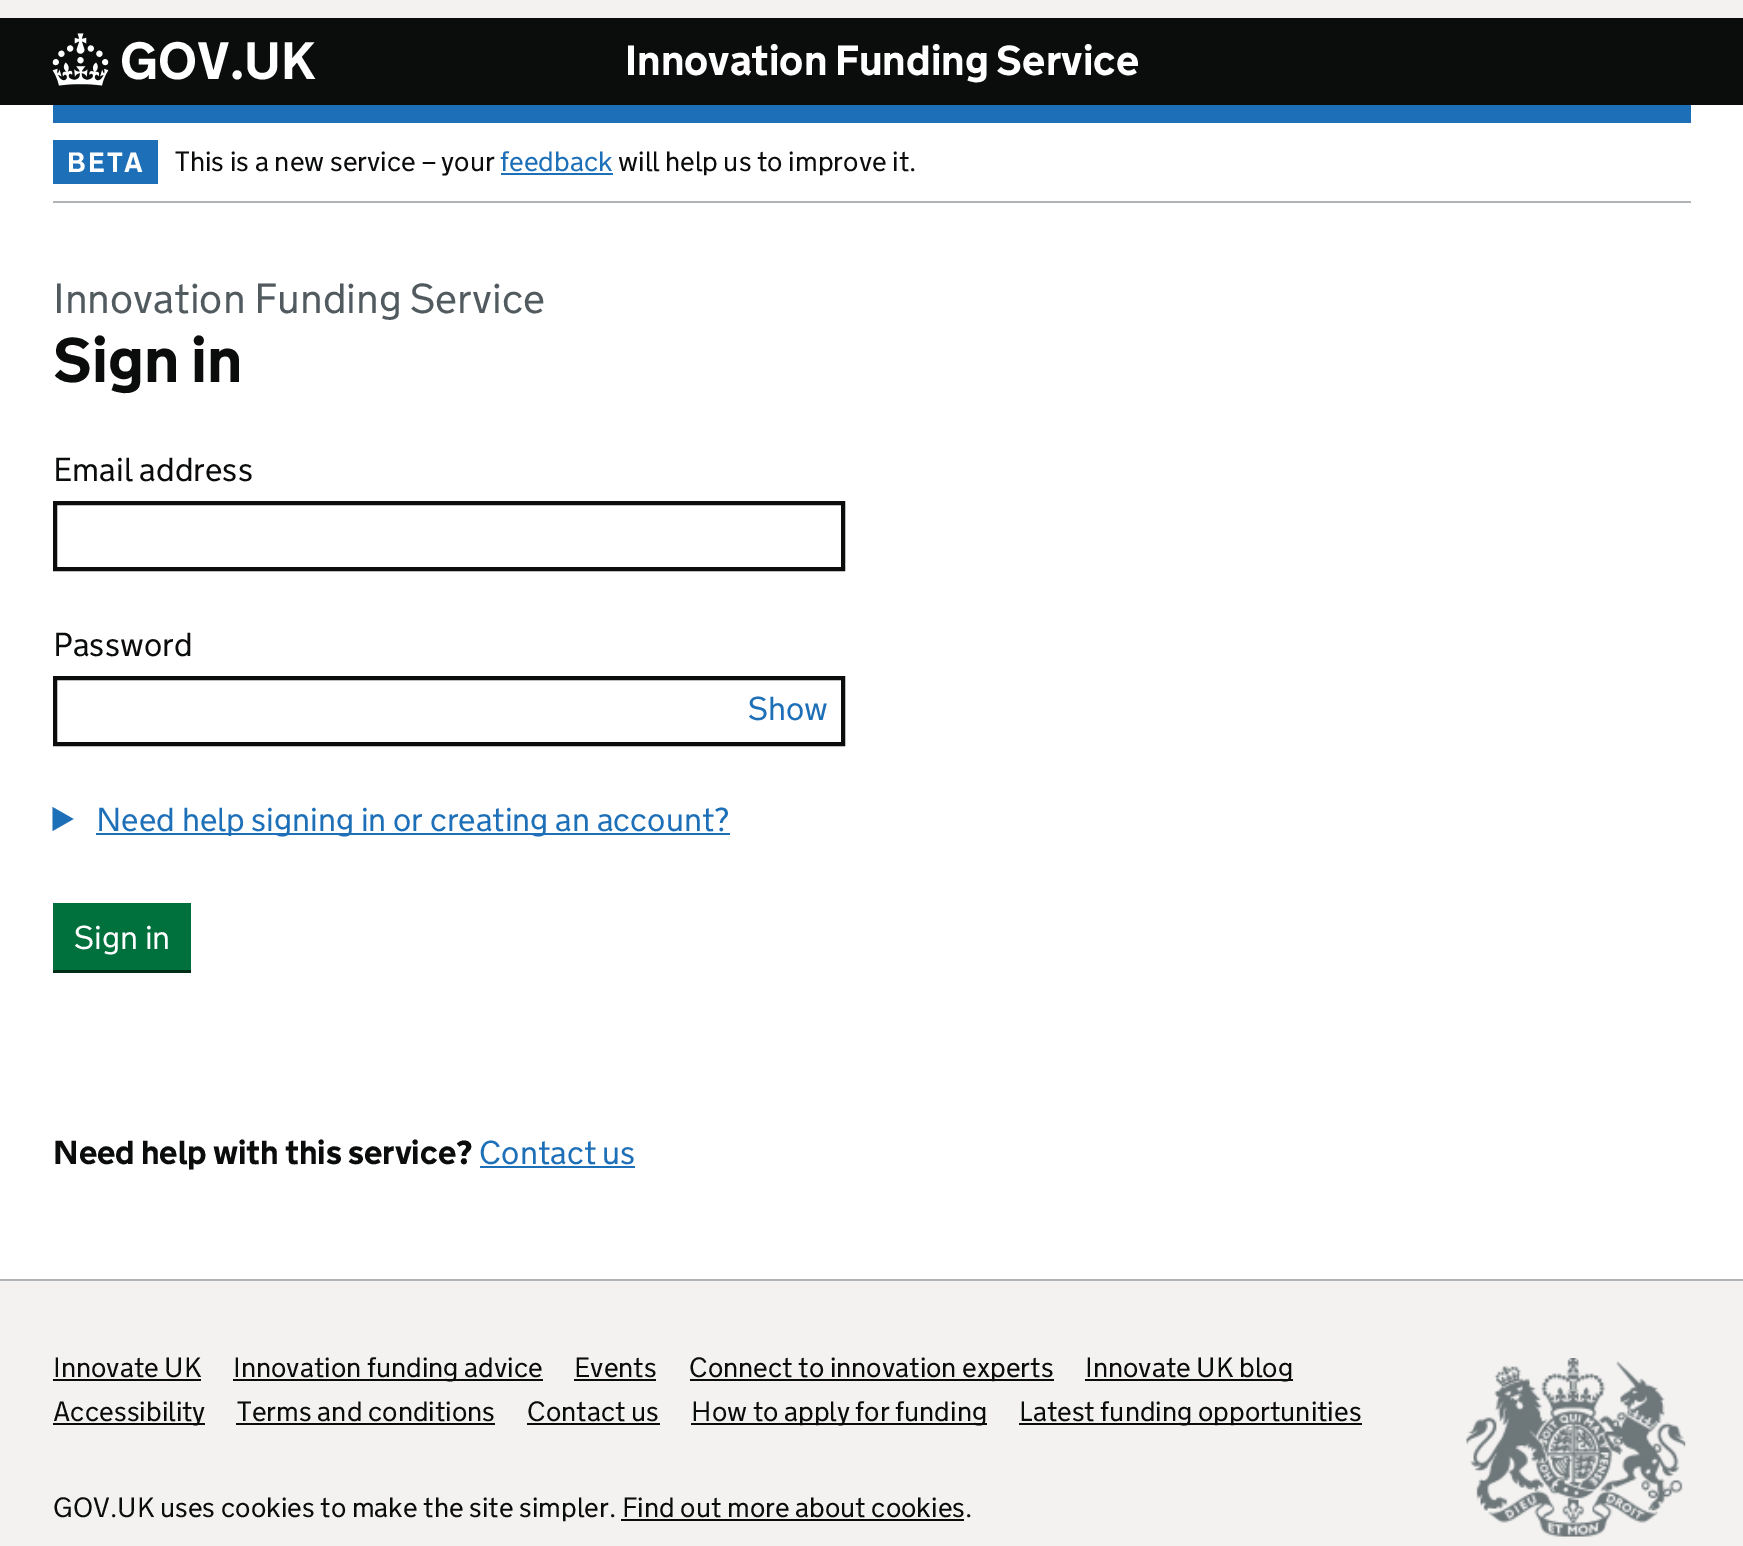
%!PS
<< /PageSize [1743 1546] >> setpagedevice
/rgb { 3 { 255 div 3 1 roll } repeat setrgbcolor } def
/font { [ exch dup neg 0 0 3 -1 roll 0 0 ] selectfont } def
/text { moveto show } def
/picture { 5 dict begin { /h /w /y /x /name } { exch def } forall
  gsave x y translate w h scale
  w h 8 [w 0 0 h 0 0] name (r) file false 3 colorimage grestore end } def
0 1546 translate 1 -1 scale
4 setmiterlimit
255 255 255 rgb
0 0 1743 1546 rectfill
243 242 241 rgb
0 0 1743 18 rectfill
11 12 12 rgb
0 18 1743 87 rectfill
29 112 184 rgb
53 105 1638 18 rectfill
(img_01.rgb) 52 33 57 53 picture
177 180 182 rgb
53 201 1638 2 rectfill
29 112 184 rgb
53 140 105 44 rectfill
501 173 112 2 rectfill
11 12 12 rgb
4 setlinewidth
55 503 788 66 rectstroke
55 678 788 66 rectstroke
29 112 184 rgb
52.5 831 moveto 0 -24 rlineto 21 12 rlineto closepath fill
96 833 634 2 rectfill
0 45 24 rgb
53 970 moveto 0 3 rlineto 138 0 rlineto 0 -66 rlineto 0 63 rlineto closepath fill
0 112 60 rgb
53 903 138 67 rectfill
29 112 184 rgb
480 1166 155 2 rectfill
243 242 241 rgb
0 1281 1743 265 rectfill
177 180 182 rgb
0 1279 1743 2 rectfill
11 12 12 rgb
53 1379 148 2 rectfill
233 1379 310 2 rectfill
574 1379 82 2 rectfill
690 1379 364 2 rectfill
1085 1379 208 2 rectfill
53 1423 152 2 rectfill
236 1423 259 2 rectfill
527 1423 133 2 rectfill
691 1423 296 2 rectfill
1019 1423 343 2 rectfill
621 1519 343 2 rectfill
(img_02.rgb) 1466 1358 220 179 picture
/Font-Bold 52.5 font
255 255 255 rgb
(GOV.UK) 120 79 text
/Font-Bold 42 font
(Innovation Funding Service) 625 75 text
/Font-Bold 28 font
67 172 moveto 2 0 (BETA) ashow
/Font-Light 28 font
11 12 12 rgb
(This is a new service – your) 175 171 text
29 112 184 rgb
(feedback) 500 171 text
11 12 12 rgb
(will help us to improve it.) 618 171 text
/Font-Light 42 font
80 90 95 rgb
(Innovation Funding Service) 53 313 text
/Font-Bold 63 font
11 12 12 rgb
(Sign in) 53 382 text
/Font-Light 33.25 font
(Email address) 53 481 text
(Password) 53 656 text
29 112 184 rgb
(Show) 748 720 text
(Need help signing in or creating an account?) 96 831 text
255 255 255 rgb
(Sign in) 74 949 text
/Font-Bold 33.25 font
11 12 12 rgb
(Need help with this service?) 53 1164 text
/Font-Light 33.25 font
29 112 184 rgb
(Contact us) 479 1164 text
/Font-Light 28 font
11 12 12 rgb
(Innovate UK) 53 1377 text
(Innovation funding advice) 233 1377 text
(Events) 574 1377 text
(Connect to innovation experts) 689 1377 text
(Innovate UK blog) 1085 1377 text
(Accessibility) 53 1421 text
(Terms and conditions) 237 1421 text
(Contact us) 527 1421 text
(How to apply for funding) 691 1421 text
(Latest funding opportunities) 1019 1421 text
(GOV.UK uses cookies to make the site simpler. Find out more about cookies.) 53 1517 text
showpage
